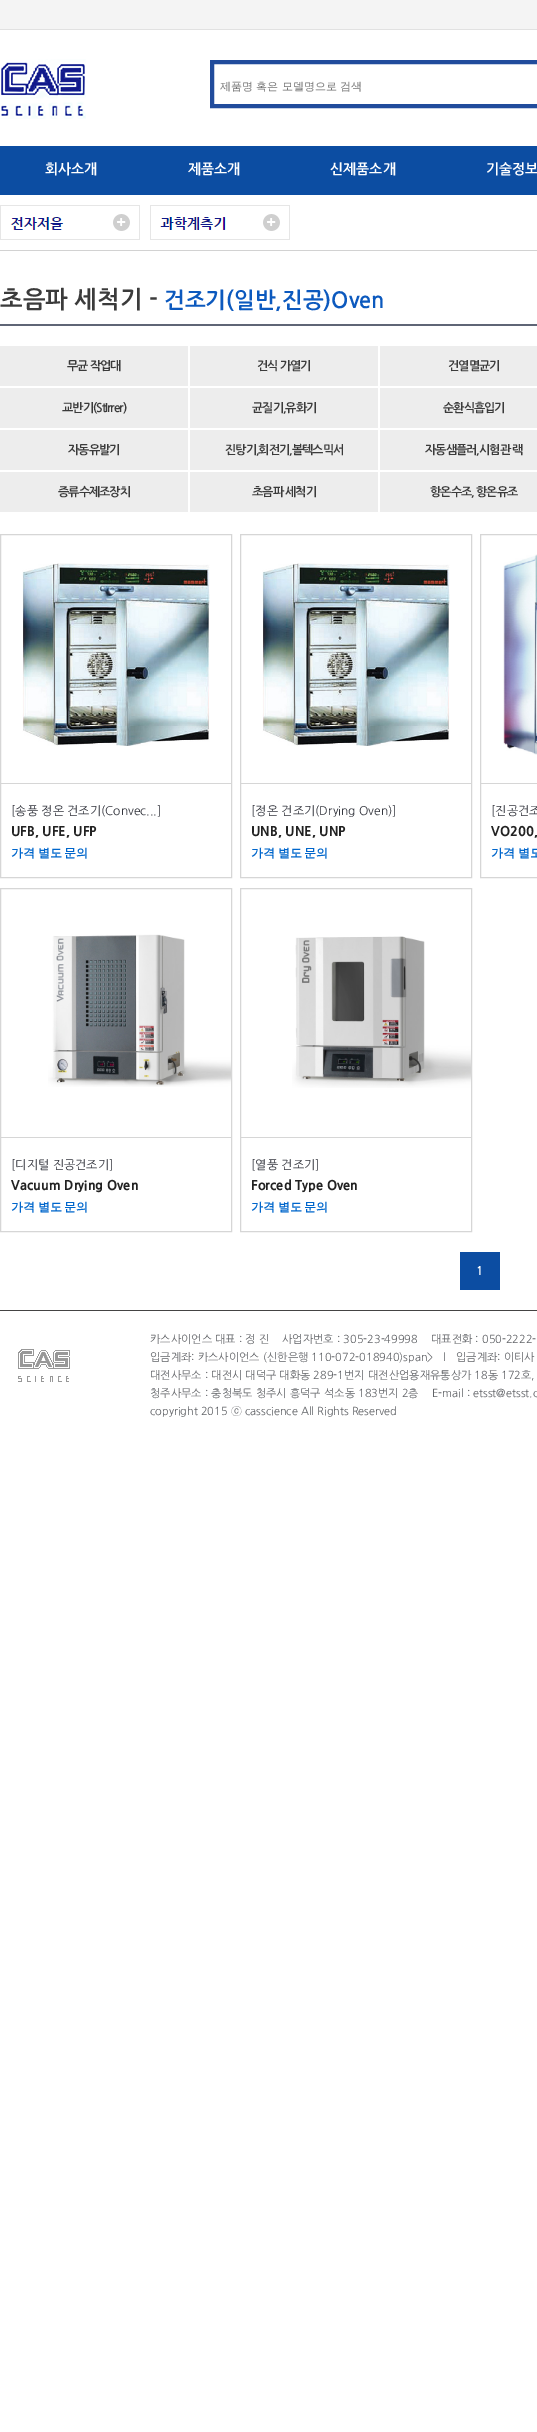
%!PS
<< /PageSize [537 2432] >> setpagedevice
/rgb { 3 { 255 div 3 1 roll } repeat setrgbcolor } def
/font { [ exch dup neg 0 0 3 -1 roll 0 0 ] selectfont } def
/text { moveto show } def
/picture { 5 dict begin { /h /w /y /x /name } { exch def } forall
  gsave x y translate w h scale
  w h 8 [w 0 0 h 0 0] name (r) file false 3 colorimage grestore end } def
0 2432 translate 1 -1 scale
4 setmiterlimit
255 255 255 rgb
0 0 537 2432 rectfill
(img_01.rgb) 0 0 537 195 picture
210 210 210 rgb
0 250 537 1 rectfill
(img_02.rgb) 1 59 85 60 picture
33 76 156 rgb
4 setlinewidth
212 62 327 44 rectstroke
(img_03.rgb) 0 205 140 35 picture
(img_04.rgb) 150 205 140 35 picture
95 101 118 rgb
0 324 537 2 rectfill
237 237 237 rgb
0 346 188 40 rectfill
190 346 188 40 rectfill
380 346 157 40 rectfill
0 388 188 40 rectfill
190 388 188 40 rectfill
380 388 157 40 rectfill
0 430 188 40 rectfill
190 430 188 40 rectfill
380 430 157 40 rectfill
0 472 188 40 rectfill
190 472 188 40 rectfill
380 472 157 40 rectfill
214 214 214 rgb
1 setlinewidth
0.5 534.5 231 343 rectstroke
(img_05.rgb) 22 563 188 183 picture
1 783 230 1 rectfill
240.5 534.5 231 343 rectstroke
(img_05.rgb) 262 563 188 183 picture
241 783 230 1 rectfill
480.5 534.5 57 343 rectstroke
(img_06.rgb) 503 554 34 201 picture
481 783 56 1 rectfill
0.5 888.5 231 343 rectstroke
(img_07.rgb) 48 934 183 153 picture
1 1137 230 1 rectfill
240.5 888.5 231 343 rectstroke
(img_08.rgb) 292 936 179 152 picture
241 1137 230 1 rectfill
12 77 162 rgb
460 1252 40 38 rectfill
68 67 67 rgb
0 1310 537 1 rectfill
(img_09.rgb) 18 1349 52 33 picture
/WenQuanYiZenHei-Medium 11 font
117 117 117 rgb
(제품명 혹은 모델명으로 검색) 220 90 text
/NanumGothic-Bold 14 font
255 255 255 rgb
(회사소개) 45 174 text
(제품소개) 188 174 text
(신제품소개) 330 174 text
(기술정보) 486 174 text
/NanumGothic-Bold 24 font
59 59 59 rgb
(초음파 세척기 -) 0 308 text
/NanumGothic-Bold 22 font
12 89 190 rgb
(건조기\(일반,진공\)Oven) 164 308 text
/NanumGothic-Bold 12 font
59 59 59 rgb
67 370 moveto -1 0 (무균 작업대) ashow
257 370 moveto -1 0 (건식 가열기) ashow
448 370 moveto -1 0 (건열멸균기) ashow
62 412 moveto -1 0 (교반기\(StIrrer\)) ashow
252 412 moveto -1 0 (균질기,유화기) ashow
443 412 moveto -1 0 (순환식흡입기) ashow
68 454 moveto -1 0 (자동유발기) ashow
225 454 moveto -1 0 (진탕기,회전기,볼텍스믹서) ashow
425 454 moveto -1 0 (자동샘플러,시험관 랙) ashow
58 496 moveto -1 0 (증류수제조장치) ashow
252 496 moveto -1 0 (초음파 세척기) ashow
430 496 moveto -1 0 (항온수조, 항온유조) ashow
/NanumGothic-Regular 12 font
51 53 61 rgb
([송풍 정온 건조기\(Convec...]) 11 815 text
/NanumGothic-ExtraBold 13 font
34 34 34 rgb
(UFB, UFE, UFP) 11 836 text
/WenQuanYiZenHei-Bold 12 font
0 102 204 rgb
11 857 moveto -1 0 32 (가격 별도 문의) widthshow
/NanumGothic-Regular 12 font
51 53 61 rgb
([정온 건조기\(Drying Oven\)]) 251 815 text
/NanumGothic-ExtraBold 13 font
34 34 34 rgb
(UNB, UNE, UNP) 251 836 text
/WenQuanYiZenHei-Bold 12 font
0 102 204 rgb
251 857 moveto -1 0 32 (가격 별도 문의) widthshow
/NanumGothic-Regular 12 font
51 53 61 rgb
([진공건조) 491 815 text
/NanumGothic-ExtraBold 13 font
34 34 34 rgb
(VO200,) 491 836 text
/WenQuanYiZenHei-Bold 12 font
0 102 204 rgb
491 857 moveto -1 0 32 (가격 별도) widthshow
/NanumGothic-Regular 12 font
51 53 61 rgb
([디지털 진공건조기]) 11 1169 text
/NanumGothic-ExtraBold 13 font
34 34 34 rgb
(Vacuum Drying Oven) 11 1190 text
/WenQuanYiZenHei-Bold 12 font
0 102 204 rgb
11 1211 moveto -1 0 32 (가격 별도 문의) widthshow
/NanumGothic-Regular 12 font
51 53 61 rgb
([열풍 건조기]) 251 1169 text
/NanumGothic-ExtraBold 13 font
34 34 34 rgb
(Forced Type Oven) 251 1190 text
/WenQuanYiZenHei-Bold 12 font
0 102 204 rgb
251 1211 moveto -1 0 32 (가격 별도 문의) widthshow
/NanumGothic-Bold 12 font
255 255 255 rgb
(1) 476 1275 text
/NanumGothic-Regular 11 font
97 99 103 rgb
(카스사이언스 대표 : 정 진) 150 1343 text
(사업자번호 : 305-23-49998) 282 1343 text
(대표전화 : 050-2222-) 431 1343 text
(입금계좌: 카스사이언스 \(신한은행 110-072-018940\)span>) 150 1361 text
(l) 443 1361 text
(입금계좌: 이티사) 456 1361 text
(대전사무소 : 대전시 대덕구 대화동 289-1번지 대전산업용재유통상가 18동 172호,) 150 1379 text
(청주사무소 : 충청북도 청주시 흥덕구 석소동 183번지 2층) 150 1397 text
(E-mail : etsst@etsst.c) 432 1397 text
(copyright 2015) 150 1415 text
/Gulim-Regular 11 font
(ⓒ) 231 1415 text
/NanumGothic-Regular 11 font
(casscience All Rights Reserved) 245 1415 text
showpage
